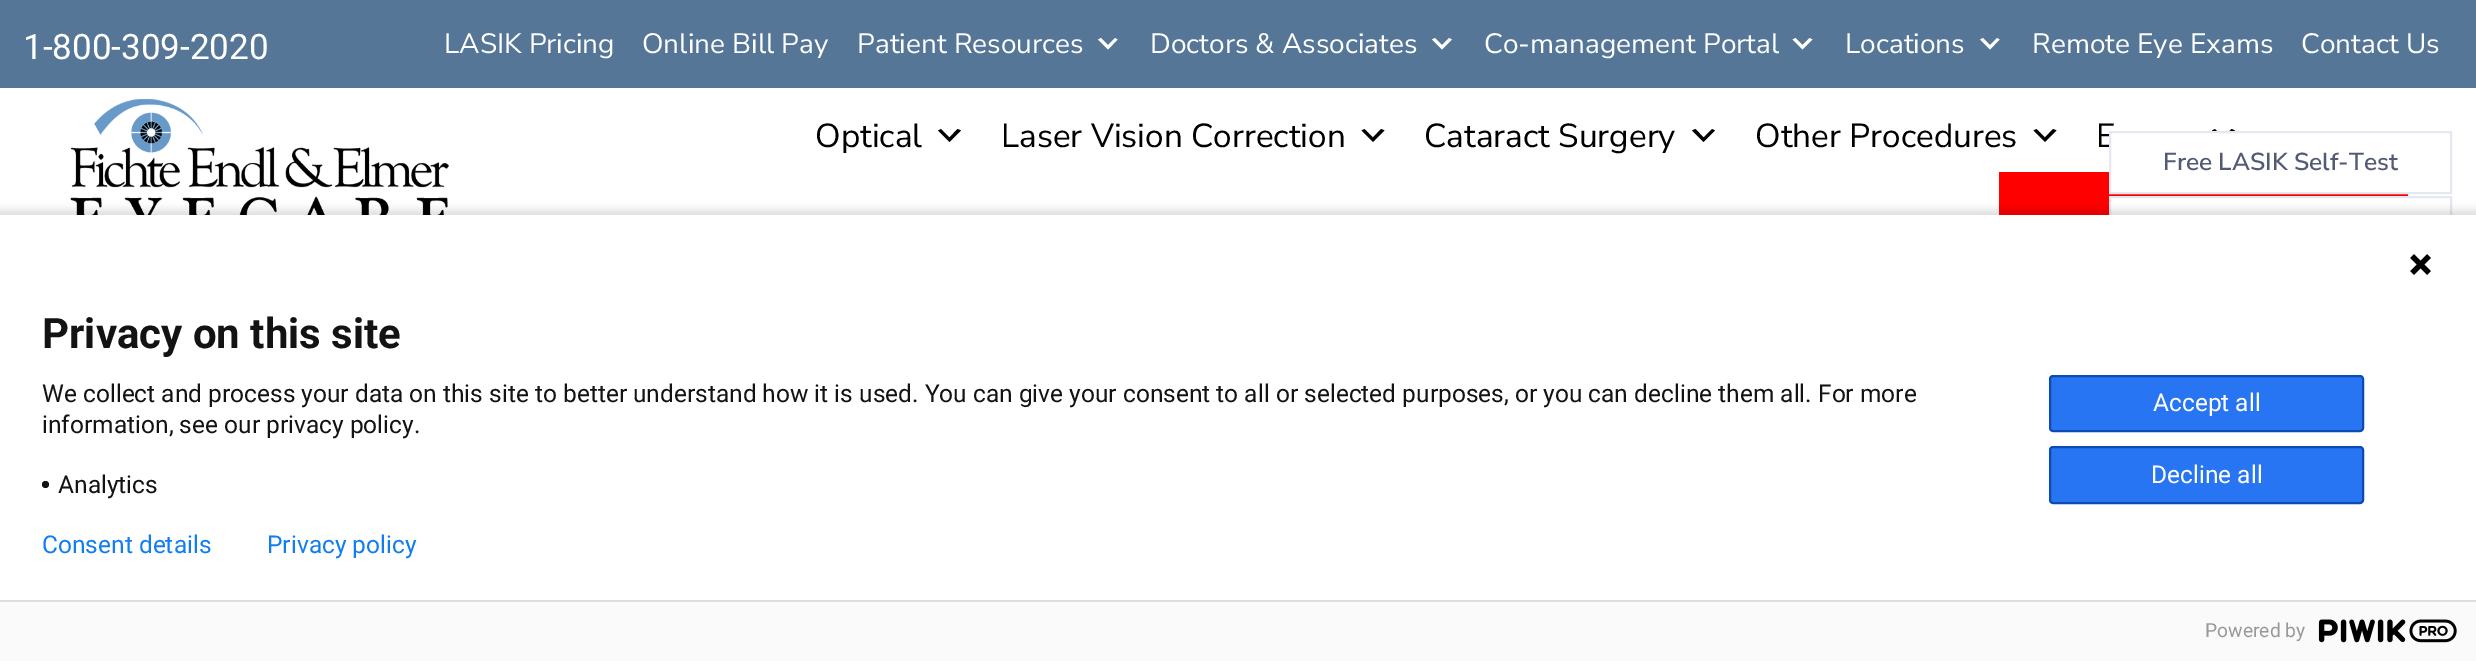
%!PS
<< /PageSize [2476 661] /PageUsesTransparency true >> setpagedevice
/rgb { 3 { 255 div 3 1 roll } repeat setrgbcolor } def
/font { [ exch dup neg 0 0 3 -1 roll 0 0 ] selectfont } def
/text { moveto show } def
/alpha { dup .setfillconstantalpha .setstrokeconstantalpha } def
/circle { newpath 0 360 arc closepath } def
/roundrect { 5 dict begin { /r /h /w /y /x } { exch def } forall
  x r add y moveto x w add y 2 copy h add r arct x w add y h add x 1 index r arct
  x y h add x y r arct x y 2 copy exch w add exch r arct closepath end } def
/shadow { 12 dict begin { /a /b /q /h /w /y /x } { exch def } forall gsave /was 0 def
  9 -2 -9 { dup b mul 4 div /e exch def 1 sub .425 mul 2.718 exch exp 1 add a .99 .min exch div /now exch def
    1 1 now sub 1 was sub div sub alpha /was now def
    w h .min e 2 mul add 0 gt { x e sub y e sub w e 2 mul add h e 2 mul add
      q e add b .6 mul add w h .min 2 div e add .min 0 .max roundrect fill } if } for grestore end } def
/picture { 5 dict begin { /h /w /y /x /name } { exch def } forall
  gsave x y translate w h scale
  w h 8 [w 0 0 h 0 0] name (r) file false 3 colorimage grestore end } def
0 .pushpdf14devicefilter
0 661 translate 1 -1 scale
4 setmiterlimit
255 255 255 rgb
0 0 2476 661 rectfill
85 118 150 rgb
0 0 2476 88 rectfill
255 255 255 rgb
1101 38 moveto 7 7 rlineto 7 -7 rlineto 2.5 1.5 rlineto -9.5 10 rlineto -10 -10 rlineto closepath fill
1435 38 moveto 7 7 rlineto 7 -7 rlineto 3 1.5 rlineto -10 10 rlineto -10 -10 rlineto closepath fill
1795.5 38 moveto 7 7 rlineto 7 -7 rlineto 3 1.5 rlineto -10 10 rlineto -10 -10 rlineto closepath fill
1983 38 moveto 7 7 rlineto 7 -7 rlineto 2.5 1.5 rlineto -9.5 10 rlineto -10 -10 rlineto closepath fill
(img_01.rgb) 70 99 379 116 picture
0 0 0 rgb
941 129 moveto 8.5 8.5 rlineto 8 -8.5 rlineto 3.5 1.5 rlineto -11.5 11.5 rlineto -11.5 -11.5 rlineto closepath fill
1364.5 129 moveto 8.5 8.5 rlineto 8 -8.5 rlineto 3.5 1.5 rlineto -11.5 11.5 rlineto -11.5 -11.5 rlineto closepath fill
1695.5 129 moveto 8 8.5 rlineto 8.5 -8.5 rlineto 3 1.5 rlineto -11.5 11.5 rlineto -11.5 -11.5 rlineto closepath fill
2036.5 129 moveto 8.5 8.5 rlineto 8 -8.5 rlineto 3.5 1.5 rlineto -11.5 11.5 rlineto -11.5 -11.5 rlineto closepath fill
2215 129 moveto 8.5 8.5 rlineto 8 -8.5 rlineto 3.5 1.5 rlineto -11.5 11.5 rlineto -11.5 -11.5 rlineto closepath fill
255 0 0 rgb
1999 172 409 43 rectfill
255 255 255 rgb
2111 198 297 17 rectfill
230 232 239 rgb
2 setlinewidth
2110 197 341 61 rectstroke
0 0 0 rgb
-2 210 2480 450 0 4.5 0.14 shadow
255 255 255 rgb
0 215 2476 385 rectfill
(img_02.rgb) 2410 254 21 21 picture
19 19 19 rgb
45.5 484.5 3.5 circle fill
39 117 242 rgb
2050 376 313 55 3 roundrect gsave fill grestore
11 75 179 rgb
stroke
39 117 242 rgb
2050 447 313 56 3 roundrect gsave fill grestore
11 75 179 rgb
stroke
250 250 250 rgb
0 602 2476 59 rectfill
221 221 221 rgb
0 600 2476 2 rectfill
(img_03.rgb) 2318 619 139 24 picture
/Roboto-Regular 35 font
255 255 255 rgb
(1-800-309-2020) 23 59 text
/NunitoSans-Regular 28 font
(LASIK Pricing) 444 53 text
(Online Bill Pay) 642 53 text
(Patient Resources) 857 53 text
(Doctors & Associates) 1150 53 text
(Co-management Portal) 1484 53 text
(Locations) 1845 53 text
(Remote Eye Exams) 2032 53 text
(Contact Us) 2301 53 text
/NunitoSans-Regular 33.25 font
0 0 0 rgb
(Optical) 815 147 text
(Laser Vision Correction) 1001 147 text
(Cataract Surgery) 1424 147 text
(Other Procedures) 1755 147 text
(E) 2096 147 text
255 255 255 rgb
2111 133 297 59 rectfill
230 232 239 rgb
2110 132 341 61 rectstroke
/NunitoSans-SemiBold 24.5 font
82 91 115 rgb
(Free LASIK Self-Test) 2163 170 text
/Roboto-Bold 42 font
19 19 19 rgb
(Privacy on this site) 42 348 text
/Roboto-Regular 24.5 font
(We collect and process your data on this site to better understand how it is used. You can give your consent to all or selected purposes, or you can decline them all. For more) 42 402 text
(information, see our privacy policy.) 42 433 text
(Analytics) 58 493 text
255 255 255 rgb
(Accept all) 2153 411 text
(Decline all) 2151 483 text
16 126 241 rgb
(Consent details) 42 553 text
(Privacy policy) 267 553 text
/Roboto-Regular 19.25 font
153 153 153 rgb
(Powered by) 2205 637 text
.poppdf14devicefilter showpage
